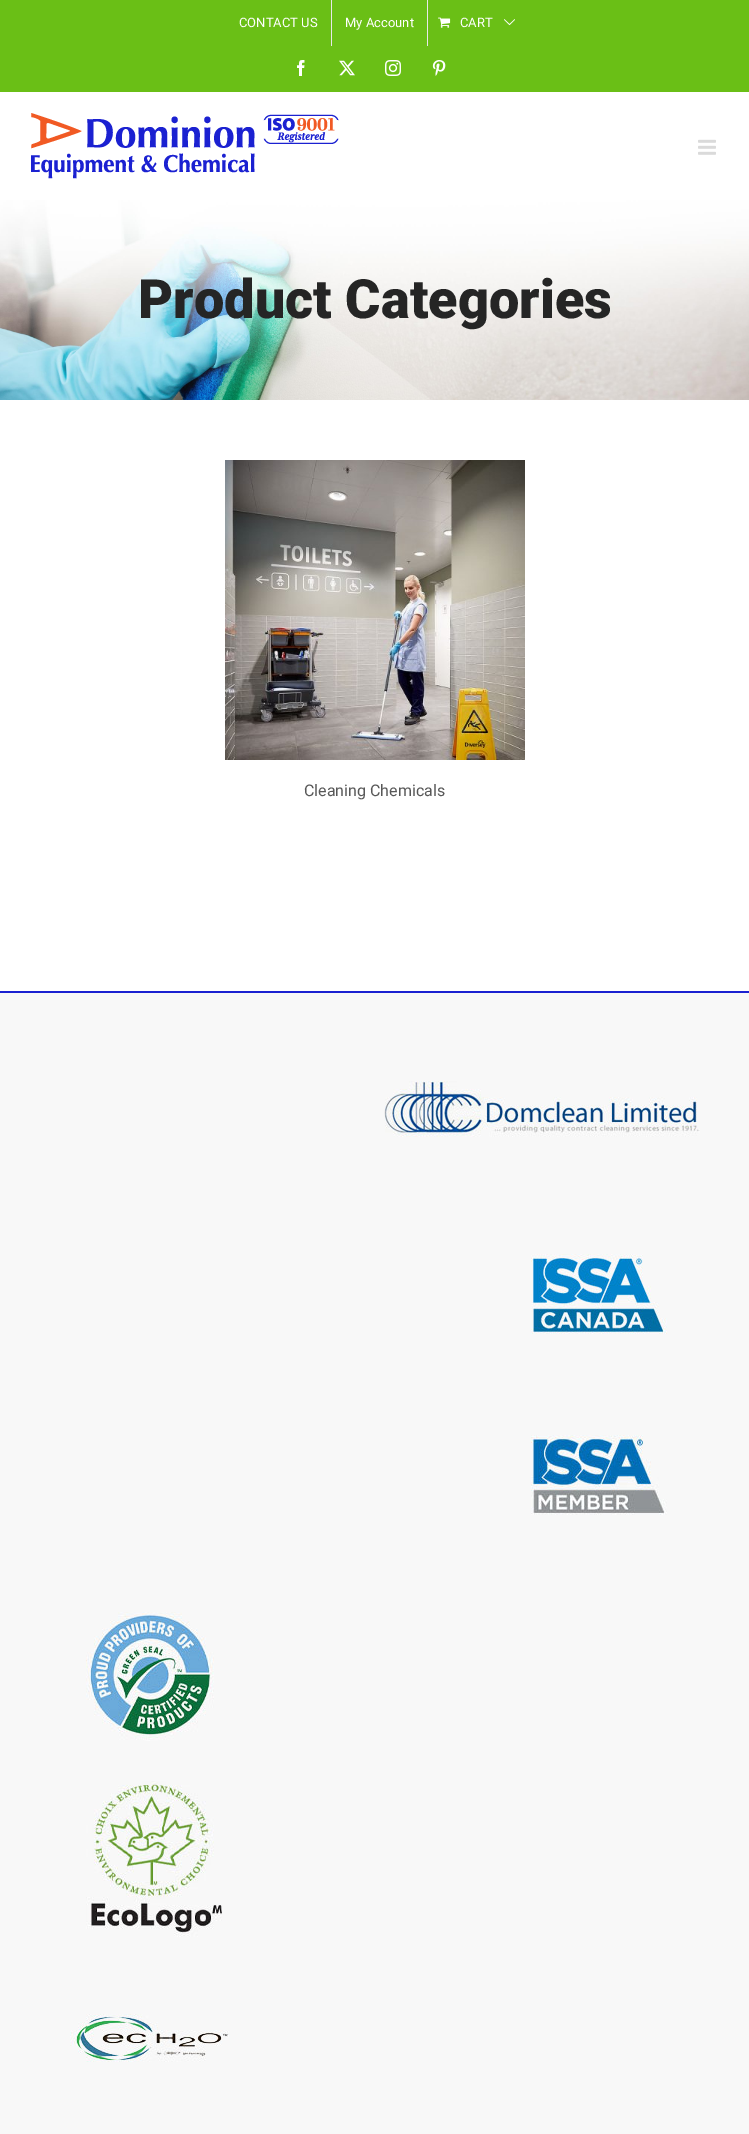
%!PS
<< /PageSize [749 2134] >> setpagedevice
/rgb { 3 { 255 div 3 1 roll } repeat setrgbcolor } def
/font { [ exch dup neg 0 0 3 -1 roll 0 0 ] selectfont } def
/text { moveto show } def
/picture { 5 dict begin { /h /w /y /x /name } { exch def } forall
  gsave x y translate w h scale
  w h 8 [w 0 0 h 0 0] name (r) file false 3 colorimage grestore end } def
0 2134 translate 1 -1 scale
4 setmiterlimit
255 255 255 rgb
0 0 749 2134 rectfill
106 191 22 rgb
0 0 749 92 rectfill
232 232 232 rgb
331 0 1 46 rectfill
427 0 1 46 rectfill
(img_01.rgb) 438 17 13 11 picture
(img_02.rgb) 504 19 11 7 picture
(img_03.rgb) 297 60 8 16 picture
(img_04.rgb) 339 60 16 16 picture
(img_05.rgb) 385 60 16 16 picture
(img_06.rgb) 432 60 14 16 picture
(img_07.rgb) 31 113 308 66 picture
(img_08.rgb) 698 139 18 16 picture
(img_09.rgb) 0 200 749 200 picture
(img_10.rgb) 225 460 300 300 picture
248 248 248 rgb
0 993 749 1141 rectfill
27 34 209 rgb
0 991 749 2 rectfill
(img_11.rgb) 384 1081 316 56 picture
(img_12.rgb) 531 1254 136 80 picture
(img_13.rgb) 531 1435 136 80 picture
(img_14.rgb) 86 1612 128 129 picture
(img_15.rgb) 86 1781 136 156 picture
(img_16.rgb) 70 2014 159 48 picture
/Roboto-Regular 13 font
255 255 255 rgb
(CONTACT US) 239 27 text
(My Account) 345 27 text
(CART) 460 27 text
/Roboto-Black 54.1 font
37 37 37 rgb
(Product Categories) 138 318 text
/Roboto-Regular 16 font
88 88 88 rgb
(Cleaning Chemicals) 304 796 text
showpage
